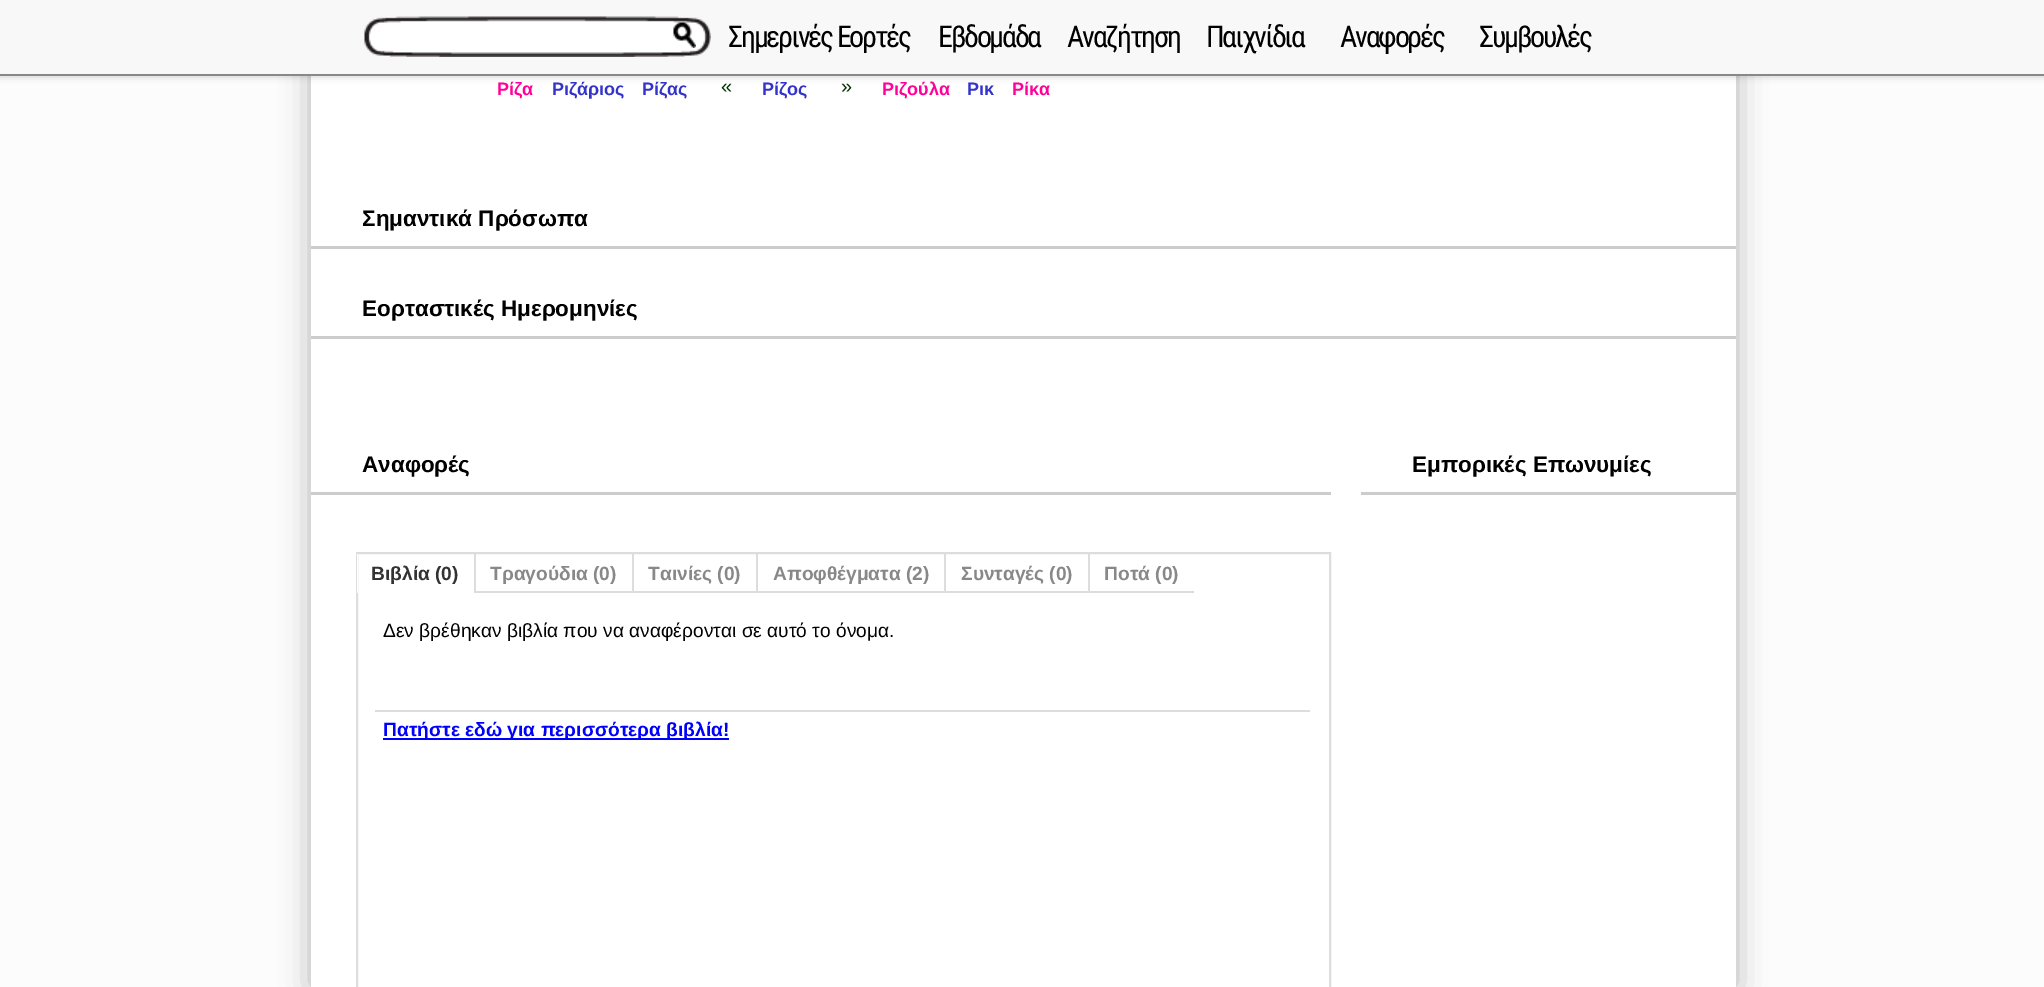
%!PS
<< /PageSize [2044 987] /PageUsesTransparency true >> setpagedevice
/rgb { 3 { 255 div 3 1 roll } repeat setrgbcolor } def
/font { [ exch dup neg 0 0 3 -1 roll 0 0 ] selectfont } def
/text { moveto show } def
/alpha { dup .setfillconstantalpha .setstrokeconstantalpha } def
/roundrect { 5 dict begin { /r /h /w /y /x } { exch def } forall
  x r add y moveto x w add y 2 copy h add r arct x w add y h add x 1 index r arct
  x y h add x y r arct x y 2 copy exch w add exch r arct closepath end } def
/shadow { 12 dict begin { /a /b /q /h /w /y /x } { exch def } forall gsave /was 0 def
  9 -2 -9 { dup b mul 4 div /e exch def 1 sub .425 mul 2.718 exch exp 1 add a .99 .min exch div /now exch def
    1 1 now sub 1 was sub div sub alpha /was now def
    w h .min e 2 mul add 0 gt { x e sub y e sub w e 2 mul add h e 2 mul add
      q e add b .6 mul add w h .min 2 div e add .min 0 .max roundrect fill } if } for grestore end } def
/picture { 5 dict begin { /h /w /y /x /name } { exch def } forall
  gsave x y translate w h scale
  w h 8 [w 0 0 h 0 0] name (r) file false 3 colorimage grestore end } def
0 .pushpdf14devicefilter
0 987 translate 1 -1 scale
4 setmiterlimit
252 252 252 rgb
0 0 2044 987 rectfill
0 0 0 rgb
311 0 1425 987 0 15 0.3 shadow
255 255 255 rgb
311 76 1425 911 rectfill
0 0 0 rgb
0 0 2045 75 0 4 0.3 shadow
248 248 248 rgb
0 0 2044 74 rectfill
136 136 136 rgb
0 74 2044 2 rectfill
(img_01.rgb) 364 16 347 41 picture
(img_02.rgb) 673 22 23 26 picture
204 204 204 rgb
311 246 1425 3 rectfill
311 336 1425 3 rectfill
311 492 1020 3 rectfill
221 221 221 rgb
2 setlinewidth
357 553 973 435 rectstroke
255 255 255 rgb
357 554 1 39 rectfill
221 221 221 rgb
474 591 720 2 rectfill
474 554 2 39 rectfill
632 554 2 39 rectfill
756 554 2 39 rectfill
944 554 2 39 rectfill
1088 554 2 39 rectfill
375 710 935 2 rectfill
0 0 255 rgb
383 738 346 2 rectfill
204 204 204 rgb
1361 492 375 3 rectfill
/RobotoCondensed-Regular 30 font
0 0 0 rgb
728 47 moveto -2.25 0 (Σημερινές Εορτές) ashow
938 47 moveto -2.25 0 (Εβδομάδα) ashow
1067 47 moveto -2.25 0 (Αναζήτηση) ashow
1206 47 moveto -2.25 0 (Παιχνίδια) ashow
1340 47 moveto -2.25 0 (Αναφορές) ashow
1479 47 moveto -2.25 0 (Συμβουλές) ashow
/LiberationSans-Bold 18 font
255 0 153 rgb
(Ρίζα) 497 95 text
51 51 204 rgb
(Ριζάριος) 552 95 text
(Ρίζας) 642 95 text
/LiberationSans-Regular 20 font
0 51 0 rgb
(«) 721 93 text
/LiberationSans-Bold 18 font
51 51 204 rgb
(Ρίζος) 762 95 text
/LiberationSans-Regular 20 font
0 51 0 rgb
(») 841 93 text
/LiberationSans-Bold 18 font
255 0 153 rgb
(Ριζούλα) 882 95 text
51 51 204 rgb
(Ρικ) 967 95 text
255 0 153 rgb
(Ρίκα) 1012 95 text
/LiberationSans-Bold 22.5 font
0 0 0 rgb
(Σημαντικά Πρόσωπα) 362 226 text
(Εορταστικές Ημερομηνίες) 362 316 text
(Αναφορές) 362 472 text
/LiberationSans-Bold 19.2 font
51 51 51 rgb
(Βιβλία \(0\)) 371 580 text
136 136 136 rgb
(Τραγούδια \(0\)) 490 580 text
(Ταινίες \(0\)) 648 580 text
(Αποφθέγματα \(2\)) 773 580 text
(Συνταγές \(0\)) 961 580 text
(Ποτά \(0\)) 1104 580 text
/LiberationSans-Regular 19.2 font
0 0 0 rgb
(Δεν βρέθηκαν βιβλία που να αναφέρονται σε αυτό το όνομα.) 383 637 text
/LiberationSans-Bold 19.2 font
0 0 255 rgb
(Πατήστε εδώ για περισσότερα βιβλία!) 383 736 text
/LiberationSans-Bold 22.5 font
0 0 0 rgb
(Εμπορικές Επωνυμίες) 1412 472 text
.poppdf14devicefilter showpage
